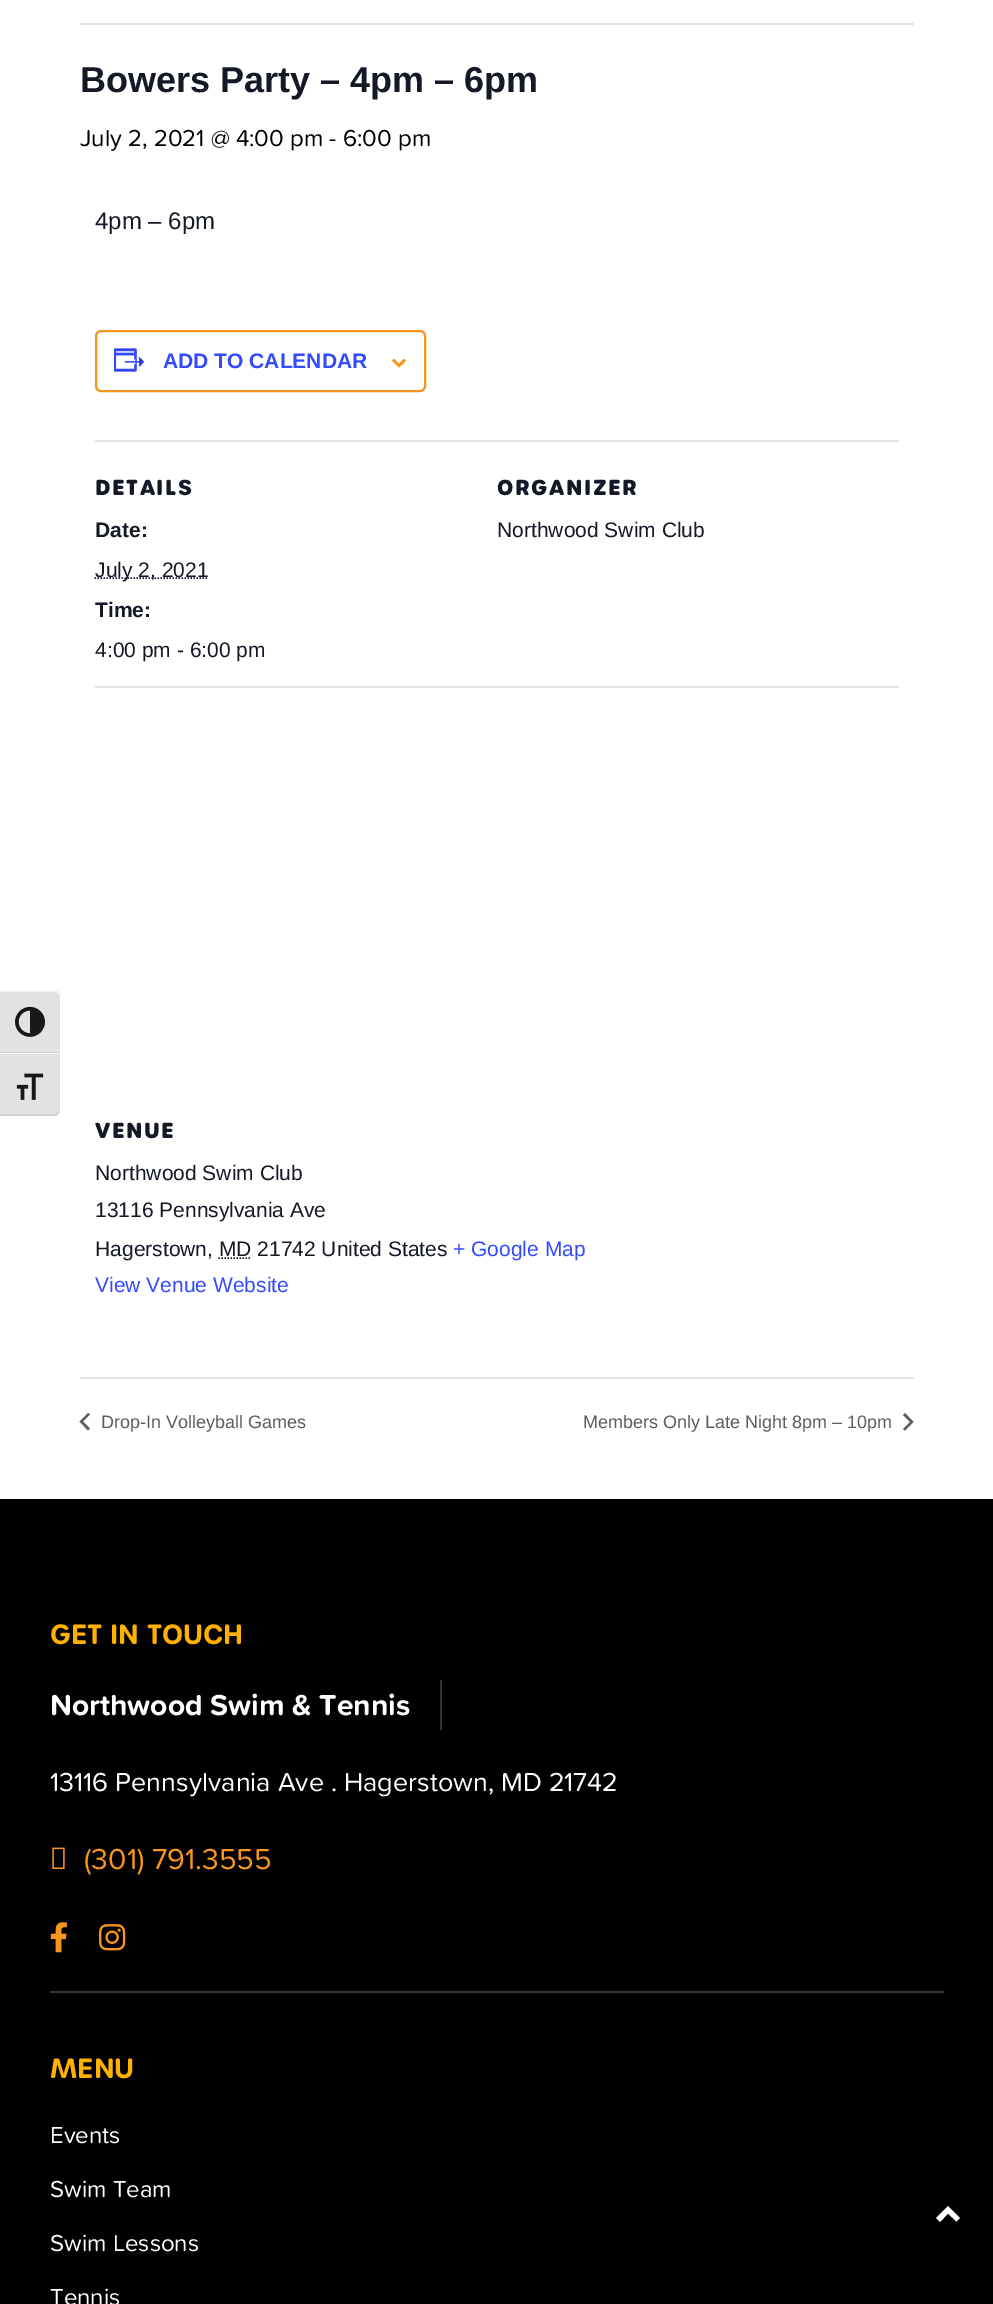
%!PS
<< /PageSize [993 2304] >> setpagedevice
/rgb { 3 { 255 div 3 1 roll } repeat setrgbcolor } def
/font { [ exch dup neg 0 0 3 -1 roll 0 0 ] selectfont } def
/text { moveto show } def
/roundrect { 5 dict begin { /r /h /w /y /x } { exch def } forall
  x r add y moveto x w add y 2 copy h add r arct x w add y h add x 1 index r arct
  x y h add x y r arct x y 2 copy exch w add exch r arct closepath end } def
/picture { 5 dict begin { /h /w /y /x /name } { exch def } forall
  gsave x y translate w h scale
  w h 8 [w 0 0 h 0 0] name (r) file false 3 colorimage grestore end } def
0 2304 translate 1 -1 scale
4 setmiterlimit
255 255 255 rgb
0 0 993 2304 rectfill
226 226 226 rgb
0 990 moveto 54 0 rlineto 3.5 0 6 2.5 6 6 rcurveto 0 57 rlineto -60 0 rlineto closepath fill
245 245 245 rgb
0 990 moveto 0 2 rlineto 54 0 rlineto 3 0 6 2 6 4 rcurveto 0 -3 -3 -6 -6 -6 rcurveto closepath fill
210 210 210 rgb
0 1052 60 1 rectfill
(img_01.rgb) 15 1006 30 31 picture
226 226 226 rgb
0 1053 moveto 60 0 rlineto 0 57 rlineto 0 3.5 -2.5 6 -6 6 rcurveto -54 0 rlineto closepath fill
245 245 245 rgb
0 1053 60 1 rectfill
210 210 210 rgb
0 1114 moveto 0 2 rlineto 54 0 rlineto 3 0 6 -3 6 -6 rcurveto 0 2 -3 4 -6 4 rcurveto closepath fill
(img_02.rgb) 16 1073 28 27 picture
228 228 228 rgb
80 23 834 2 rectfill
247 150 29 rgb
2 setlinewidth
96 331 329 60 5 roundrect stroke
(img_03.rgb) 114 348 31 24 picture
(img_04.rgb) 392 359 15 9 picture
228 228 228 rgb
95 440 804 2 rectfill
20 24 39 rgb
1.5 setlinewidth
[1.5 1.5] 0 setdash
94.5 578 moveto 113.5 0 rlineto stroke
228 228 228 rgb
95 686 804 2 rectfill
20 24 39 rgb
218.5 1258 moveto 32.5 0 rlineto stroke
228 228 228 rgb
80 1377 834 2 rectfill
93 93 93 rgb
90 1428.5 moveto -2 2 rlineto -8.5 -9 rlineto 8.5 -8.5 rlineto 2 1.5 rlineto -7 7 rlineto closepath fill
903 1415 moveto 2 -2 rlineto 8.5 9 rlineto -8.5 8.5 rlineto -2 -1.5 rlineto 7 -7 rlineto closepath fill
0 0 0 rgb
0 1499 993 805 rectfill
51 51 51 rgb
50 1991 894 2 rectfill
440 1680 2 50 rectfill
(img_05.rgb) 52 1847 13 22 picture
(img_06.rgb) 50 1922 17 31 picture
(img_07.rgb) 99 1924 27 27 picture
255 255 255 rgb
948 2206 moveto 12 12 rlineto -3.5 3.5 rlineto -8.5 -8 rlineto -8 8.5 rlineto -4 -4 rlineto closepath fill
/LiberationSans-Bold 36 font
20 24 39 rgb
(Bowers Party – 4pm – 6pm) 80 92 text
/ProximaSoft-Regular 24 font
0 0 0 rgb
(July 2, 2021 @ 4:00 pm - 6:00 pm) 80 146 text
/LiberationSans-Regular 24 font
20 24 39 rgb
(4pm – 6pm) 95 229 text
/LiberationSans-Bold 21 font
51 74 255 rgb
(ADD TO CALENDAR) 163 368 text
/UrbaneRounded-Bold 21 font
20 24 39 rgb
95 495 moveto 1.5 0 (DETAILS) ashow
/LiberationSans-Bold 21 font
(Date:) 95 537 text
/LiberationSans-Regular 21 font
(July 2, 2021) 95 577 text
/LiberationSans-Bold 21 font
(Time:) 95 617 text
/LiberationSans-Regular 21 font
(4:00 pm - 6:00 pm) 95 657 text
/UrbaneRounded-Bold 21 font
497 495 moveto 1.5 0 (ORGANIZER) ashow
/LiberationSans-Regular 21 font
(Northwood Swim Club) 497 537 text
/UrbaneRounded-Bold 21 font
95 1138 moveto 1.5 0 (VENUE) ashow
/LiberationSans-Regular 21 font
(Northwood Swim Club) 95 1180 text
(13116 Pennsylvania Ave) 95 1217 text
(Hagerstown, MD 21742 United States) 95 1256 text
51 74 255 rgb
(+ Google Map) 453 1256 text
(View Venue Website) 95 1292 text
/LiberationSans-Regular 18 font
93 93 93 rgb
(Drop-In Volleyball Games) 101 1428 text
(Members Only Late Night 8pm – 10pm) 583 1428 text
/UrbaneRounded-SemiBold 27 font
255 176 0 rgb
(GET IN TOUCH) 50 1644 text
/ProximaSoft-Bold 30 font
255 255 255 rgb
(Northwood Swim & Tennis) 50 1715 text
/ProximaSoft-Regular 27 font
(13116 Pennsylvania Ave . Hagerstown, MD 21742) 50 1791 text
/ProximaSoft-Regular 30 font
247 150 29 rgb
(\(301\) 791.3555) 84 1869 text
/UrbaneRounded-SemiBold 27 font
255 176 0 rgb
(MENU) 50 2078 text
/ProximaSoft-Regular 24 font
255 255 255 rgb
(Events) 50 2143 text
(Swim Team) 50 2197 text
(Swim Lessons) 50 2251 text
(Tennis) 50 2305 text
showpage
